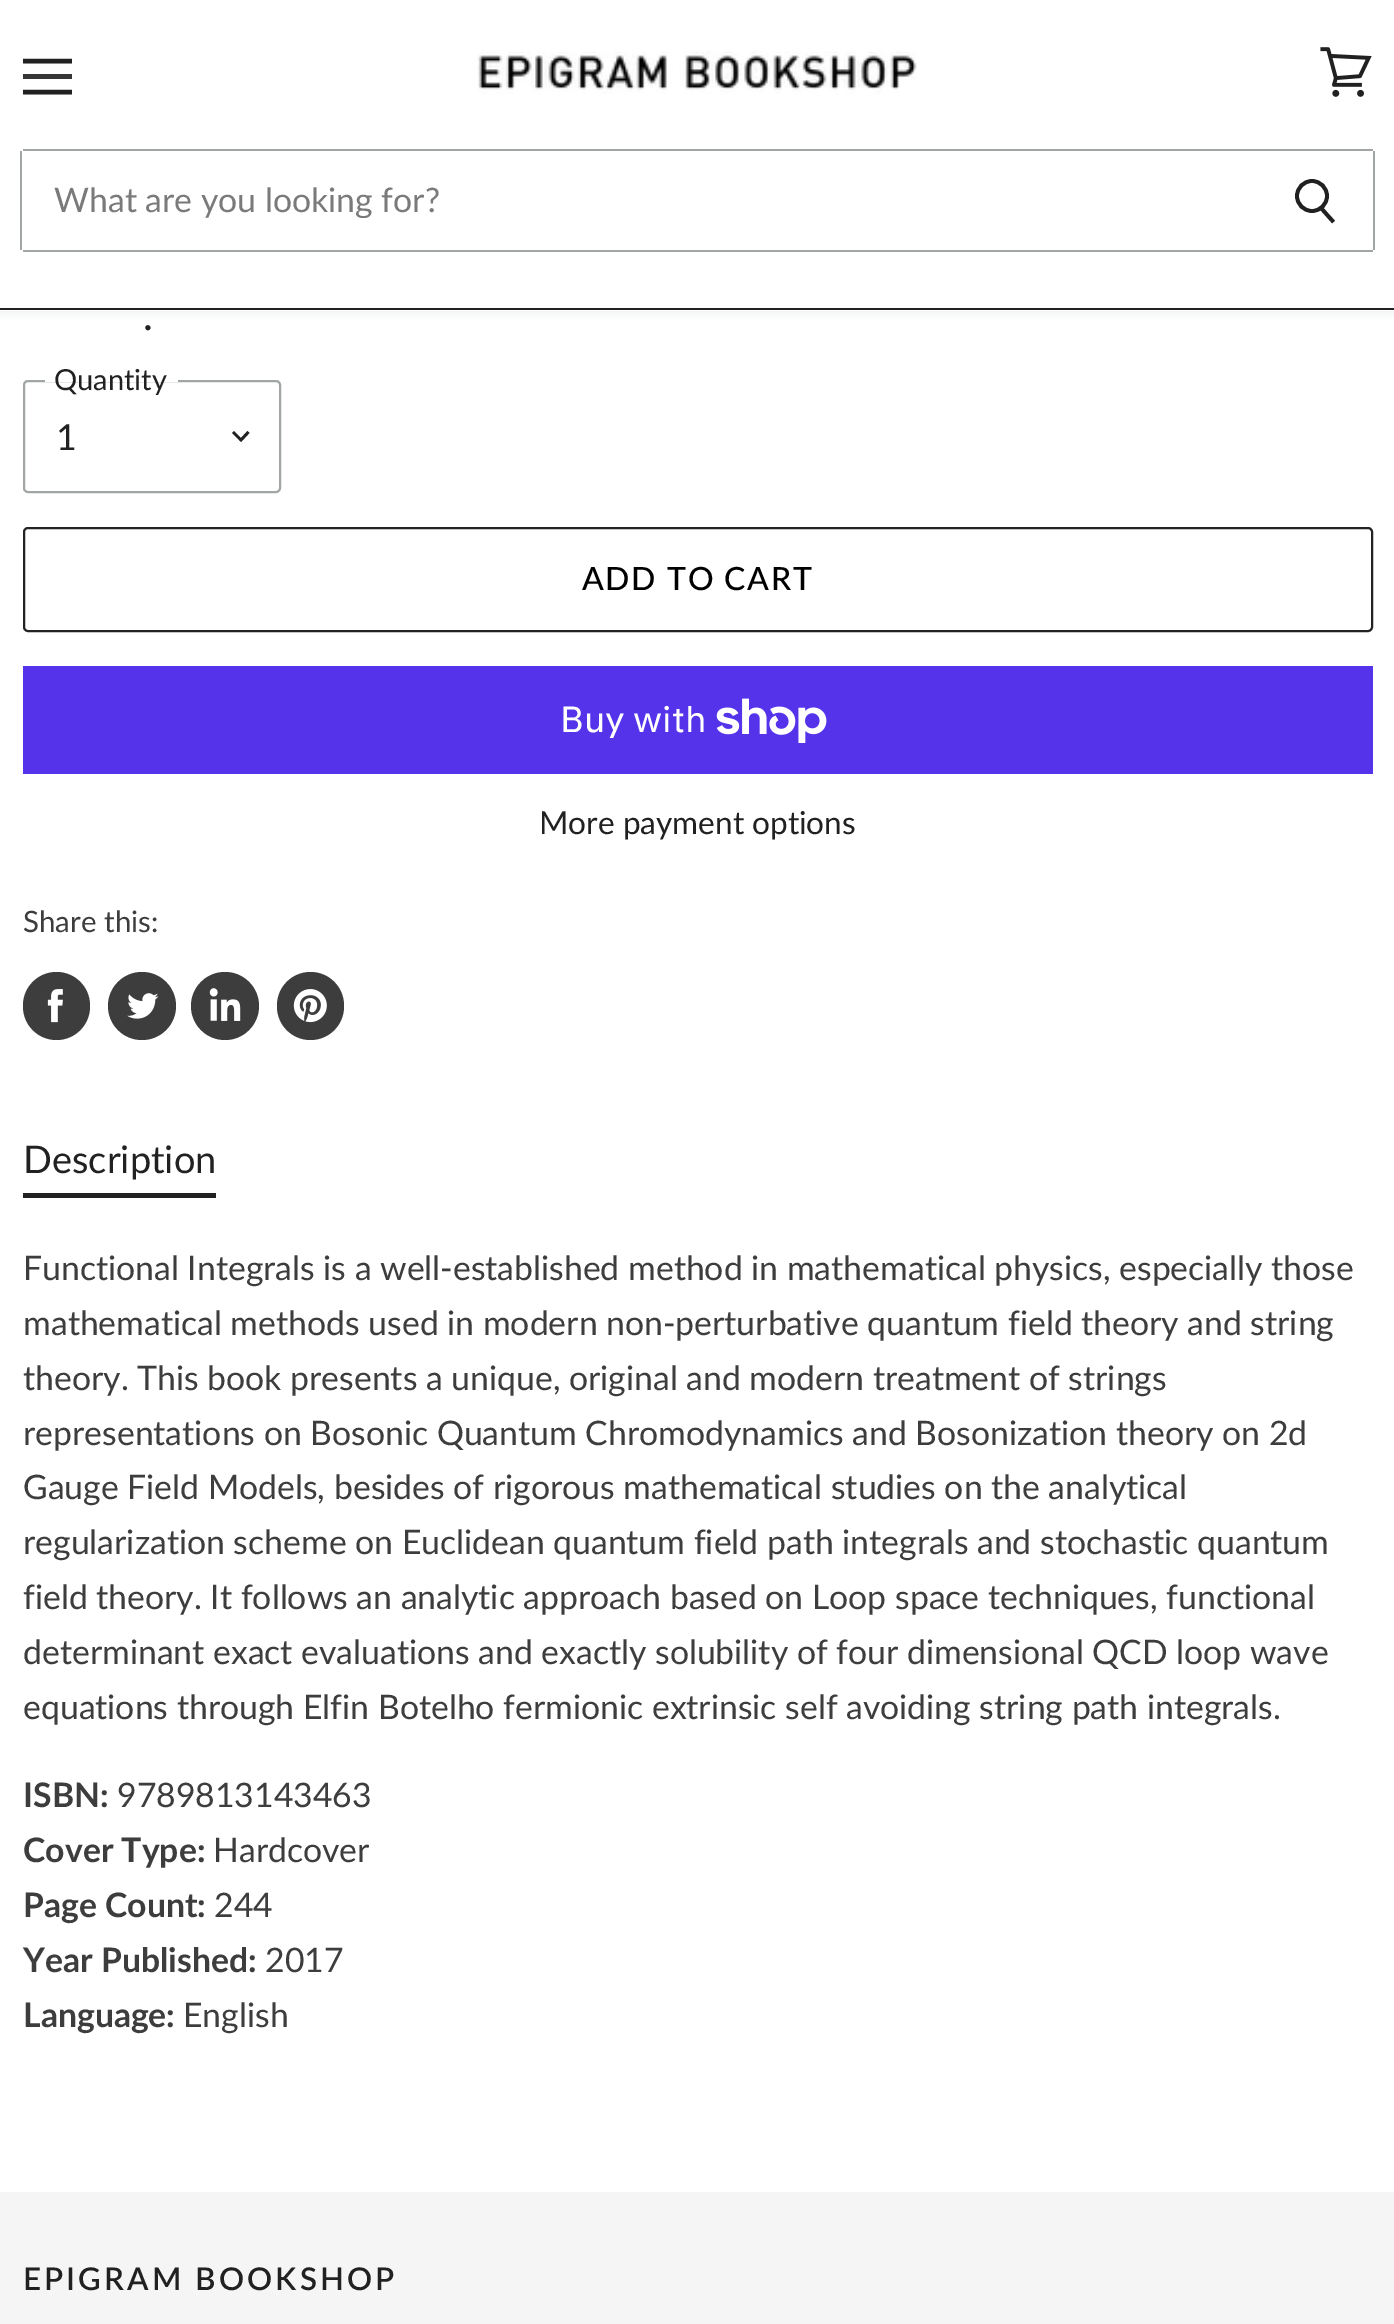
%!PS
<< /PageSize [1394 2324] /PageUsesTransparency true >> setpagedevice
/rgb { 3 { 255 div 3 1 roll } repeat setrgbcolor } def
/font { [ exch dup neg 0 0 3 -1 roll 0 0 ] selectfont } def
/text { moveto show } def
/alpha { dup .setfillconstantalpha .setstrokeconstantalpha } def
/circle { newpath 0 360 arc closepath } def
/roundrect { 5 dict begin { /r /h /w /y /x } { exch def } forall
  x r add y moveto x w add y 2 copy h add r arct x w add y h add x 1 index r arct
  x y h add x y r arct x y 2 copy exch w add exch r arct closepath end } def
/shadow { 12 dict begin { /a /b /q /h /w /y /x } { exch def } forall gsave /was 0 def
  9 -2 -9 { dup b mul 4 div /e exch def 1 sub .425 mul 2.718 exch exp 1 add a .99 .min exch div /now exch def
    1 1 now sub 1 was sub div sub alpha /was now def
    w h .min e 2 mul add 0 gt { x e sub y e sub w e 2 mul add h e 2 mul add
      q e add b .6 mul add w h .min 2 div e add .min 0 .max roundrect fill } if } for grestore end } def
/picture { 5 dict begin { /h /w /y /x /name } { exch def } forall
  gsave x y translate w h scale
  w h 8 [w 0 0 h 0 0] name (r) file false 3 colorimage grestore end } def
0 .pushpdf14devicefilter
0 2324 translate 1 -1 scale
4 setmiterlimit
255 255 255 rgb
0 0 1394 2324 rectfill
186 192 190 rgb
0 2 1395 311 0 4.5 0.25 shadow
255 255 255 rgb
0 0 1394 311 rectfill
33 33 33 rgb
0 308 1394 2 rectfill
gsave
23 56 49 41 rectclip
4.5 setlinewidth
2 setlinecap
1 setlinejoin
70 61 moveto -45 0 rlineto stroke
grestore
55 55 55 rgb
23 74 49 5 rectfill
gsave
23 56 49 41 rectclip
33 33 33 rgb
4.5 setlinewidth
2 setlinecap
1 setlinejoin
70 92 moveto -45 0 rlineto stroke
grestore
(img_01.rgb) 1320 47 52 50 picture
(img_02.rgb) 477 51 440 43 picture
161 166 164 rgb
23 149 1350 2 rectfill
1373 151 2 99 rectfill
23 250 1350 2 rectfill
33 33 33 rgb
3.8 setlinewidth
1333.5 222 moveto -12.5 -14 rlineto stroke
1312 196 15 circle stroke
161 166 164 rgb
20 151 2 99 rectfill
2 setlinewidth
24 381 256 111 4 roundrect stroke
255 255 255 rgb
45 380 133 2 rectfill
33 33 33 rgb
2.8 setlinewidth
2 setlinecap
241 440 moveto 6.5 -7 rlineto 241 440 moveto -7 -7 rlineto stroke
35 35 35 rgb
2 setlinewidth
0 setlinecap
24 528 1348 103 4 roundrect stroke
84 51 235 rgb
23 666 1350 108 rectfill
(img_03.rgb) 716 698 111 45 picture
61 61 61 rgb
23 972 67 68 33.5 roundrect fill
(img_04.rgb) 47 989 16 34 picture
142 1006 34 circle fill
(img_05.rgb) 127 993 32 26 picture
225 1006 34 circle fill
(img_06.rgb) 209 988 32 33 picture
277 972 67 68 33.5 roundrect fill
(img_07.rgb) 293 989 34 34 picture
33 33 33 rgb
23 1193 193 5 rectfill
245 245 245 rgb
0 2192 1394 132 rectfill
gsave
54 178 1170 40 rectclip
/Lato-Regular 33.75 font
122 122 122 rgb
(What are you looking for?) 54 212 text
grestore
/Lato-Regular 42 font
33 33 33 rgb
(.) 143 330 text
/Lato-Regular 29 font
(Quantity) 54 390 text
/Lato-Regular 36 font
(1) 56 450 text
/Lato-Medium 32 font
0 0 0 rgb
582 590 moveto 1.6 0 (ADD TO CART) ashow
/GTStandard-Regular 36 font
255 255 255 rgb
(Buy with) 560 732 text
/Lato-Regular 31.6 font
33 33 33 rgb
(More payment options) 539 834 text
/Lato-Regular 29.5 font
61 61 61 rgb
(Share this:) 23 932 text
/Lato-Regular 38 font
33 33 33 rgb
(Description) 23 1173 text
/Lato-Regular 33.75 font
61 61 61 rgb
(Functional Integrals is a well-established method in mathematical physics, especially those) 23 1280 text
(mathematical methods used in modern non-perturbative quantum field theory and string) 23 1335 text
(theory. This book presents a unique, original and modern treatment of strings) 23 1390 text
(representations on Bosonic Quantum Chromodynamics and Bosonization theory on 2d) 23 1445 text
(Gauge Field Models, besides of rigorous mathematical studies on the analytical) 23 1499 text
(regularization scheme on Euclidean quantum field path integrals and stochastic quantum) 23 1554 text
(field theory. It follows an analytic approach based on Loop space techniques, functional) 23 1609 text
(determinant exact evaluations and exactly solubility of four dimensional QCD loop wave) 23 1664 text
(equations through Elfin Botelho fermionic extrinsic self avoiding string path integrals.) 23 1719 text
/Lato-Bold 33.75 font
(ISBN:) 23 1807 text
/Lato-Regular 33.75 font
(9789813143463) 117 1807 text
/Lato-Bold 33.75 font
(Cover Type:) 23 1862 text
/Lato-Regular 33.75 font
(Hardcover) 213 1862 text
/Lato-Bold 33.75 font
(Page Count:) 23 1917 text
/Lato-Regular 33.75 font
(244) 214 1917 text
/Lato-Bold 33.75 font
(Year Published:) 23 1972 text
/Lato-Regular 33.75 font
(2017) 265 1972 text
/Lato-Bold 33.75 font
(Language:) 23 2027 text
/Lato-Regular 33.75 font
(English) 183 2027 text
/Lato-SemiBold 31.3 font
33 33 33 rgb
23 2290 moveto 3.1 0 (EPIGRAM BOOKSHOP) ashow
.poppdf14devicefilter showpage
